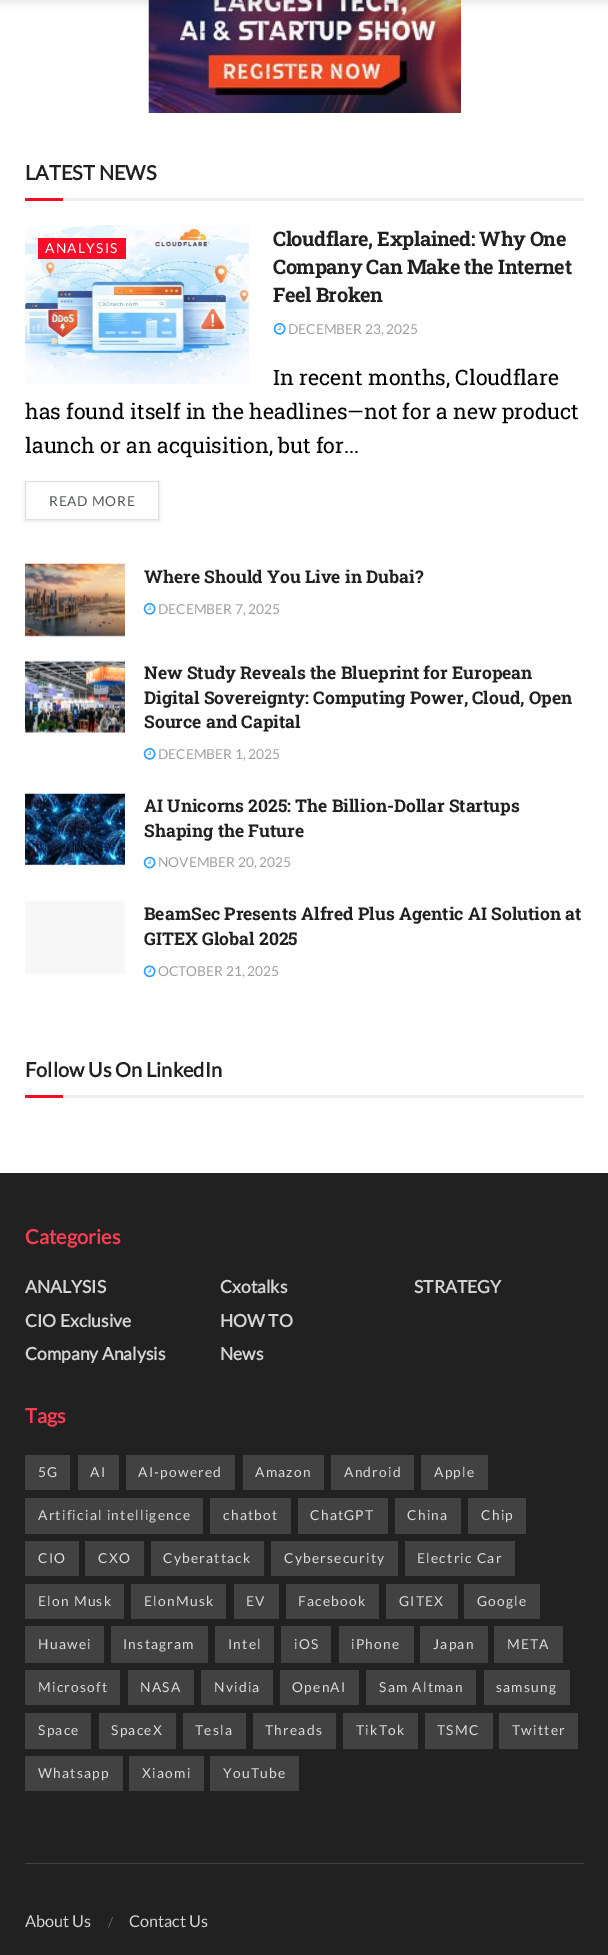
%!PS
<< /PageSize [608 1955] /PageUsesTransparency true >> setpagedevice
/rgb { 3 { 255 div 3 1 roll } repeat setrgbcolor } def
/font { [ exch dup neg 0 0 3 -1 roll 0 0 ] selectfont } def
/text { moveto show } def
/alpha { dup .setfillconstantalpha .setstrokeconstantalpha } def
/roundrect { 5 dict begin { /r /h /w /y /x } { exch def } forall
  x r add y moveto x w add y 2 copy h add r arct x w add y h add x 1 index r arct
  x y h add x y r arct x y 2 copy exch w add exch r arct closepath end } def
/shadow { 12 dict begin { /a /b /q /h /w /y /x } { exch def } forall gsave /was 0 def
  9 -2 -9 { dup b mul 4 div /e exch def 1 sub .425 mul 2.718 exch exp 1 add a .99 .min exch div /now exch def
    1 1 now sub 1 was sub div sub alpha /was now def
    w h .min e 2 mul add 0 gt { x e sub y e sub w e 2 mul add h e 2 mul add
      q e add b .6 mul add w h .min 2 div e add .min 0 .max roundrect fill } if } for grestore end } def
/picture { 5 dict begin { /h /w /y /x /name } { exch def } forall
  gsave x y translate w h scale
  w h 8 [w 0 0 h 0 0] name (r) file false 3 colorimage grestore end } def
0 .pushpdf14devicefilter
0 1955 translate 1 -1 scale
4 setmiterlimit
255 255 255 rgb
0 0 608 1955 rectfill
(img_01.rgb) 148 0 313 113 picture
0 0 0 rgb
0 -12 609 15 0 4 0.1 shadow
238 238 238 rgb
63 198 521 3 rectfill
247 13 40 rgb
25 198 38 3 rectfill
(img_02.rgb) 273 322 13 13 picture
gsave
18 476 moveto 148 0 rlineto 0 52 rlineto -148 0 rlineto closepath 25 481 moveto 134 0 rlineto 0 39 rlineto -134 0 rlineto closepath eoclip newpath
0 0 0 rgb
25 483 134 38 0 2 0.1 shadow
grestore
224 224 224 rgb
25.5 481.5 133 38 rectstroke
(img_03.rgb) 25 225 224 159 picture
247 13 40 rgb
38 238 88 21 rectfill
(img_04.rgb) 25 563 100 74 picture
(img_02.rgb) 143 602 13 13 picture
247 247 247 rgb
25 661 100 72 rectfill
(img_05.rgb) 25 660 100 73 picture
(img_02.rgb) 143 747 13 13 picture
(img_06.rgb) 25 793 100 73 picture
(img_07.rgb) 143 856 13 13 picture
25 901 100 73 rectfill
(img_08.rgb) 143 965 13 13 picture
238 238 238 rgb
63 1095 521 3 rectfill
247 13 40 rgb
25 1095 38 3 rectfill
33 33 33 rgb
0 1173 608 782 rectfill
66 66 66 rgb
25 1455 45 35 rectfill
78 1455 41 35 rectfill
126 1455 109 35 rectfill
243 1455 81 35 rectfill
331 1455 83 35 rectfill
421 1455 67 35 rectfill
25 1498 178 36 rectfill
210 1498 81 36 rectfill
298 1498 90 36 rectfill
395 1498 66 36 rectfill
468 1498 58 36 rectfill
25 1541 54 35 rectfill
85 1541 59 35 rectfill
151 1541 113 35 rectfill
271 1541 127 35 rectfill
405 1541 110 35 rectfill
25 1584 99 35 rectfill
131 1584 95 35 rectfill
234 1584 45 35 rectfill
286 1584 93 35 rectfill
386 1584 72 35 rectfill
464 1584 76 35 rectfill
25 1626 79 37 rectfill
111 1626 97 37 rectfill
215 1626 59 37 rectfill
281 1626 50 37 rectfill
339 1626 75 37 rectfill
420 1626 68 37 rectfill
494 1626 69 37 rectfill
25 1670 95 35 rectfill
128 1670 66 35 rectfill
201 1670 72 35 rectfill
280 1670 79 35 rectfill
366 1670 110 35 rectfill
484 1670 86 35 rectfill
25 1713 66 36 rectfill
99 1713 77 36 rectfill
183 1713 63 36 rectfill
253 1713 83 36 rectfill
343 1713 75 36 rectfill
425 1713 68 36 rectfill
499 1713 79 36 rectfill
25 1756 98 35 rectfill
129 1756 75 35 rectfill
210 1756 89 35 rectfill
25 1863 559 1 rectfill
/Lato-Bold 20 font
33 33 33 rgb
(LATEST NEWS) 25 180 text
/RobotoSlab-Bold 20 font
273 246 moveto -0.4 0 (Cloudflare, Explained: Why One) ashow
273 274 moveto -0.4 0 (Company Can Make the Internet) ashow
273 302 moveto -0.4 0 (Feel Broken) ashow
/Lato-Regular 13.75 font
160 160 160 rgb
(DECEMBER 23, 2025) 288 334 text
/RobotoSlab-Regular 21.25 font
0 0 0 rgb
(In recent months, Cloudflare) 273 385 text
(has found itself in the headlines—not for a new product) 25 419 text
(launch or an acquisition, but for...) 25 453 text
/Lato-Regular 13.75 font
83 88 92 rgb
49 506 moveto 0.75 0 (READ MORE) ashow
255 255 255 rgb
45 253 moveto 1.25 0 (ANALYSIS) ashow
/RobotoSlab-Bold 17.5 font
33 33 33 rgb
(Where Should You Live in Dubai?) 144 583 text
/Lato-Regular 13.75 font
160 160 160 rgb
(DECEMBER 7, 2025) 158 614 text
/RobotoSlab-Bold 17.5 font
33 33 33 rgb
(New Study Reveals the Blueprint for European) 144 679 text
(Digital Sovereignty: Computing Power, Cloud, Open) 144 704 text
(Source and Capital) 144 728 text
/Lato-Regular 13.75 font
160 160 160 rgb
(DECEMBER 1, 2025) 158 759 text
/RobotoSlab-Bold 17.5 font
33 33 33 rgb
(AI Unicorns 2025: The Billion-Dollar Startups) 144 812 text
(Shaping the Future) 144 837 text
/Lato-Regular 13.75 font
160 160 160 rgb
(NOVEMBER 20, 2025) 158 867 text
/RobotoSlab-Bold 17.5 font
33 33 33 rgb
(BeamSec Presents Alfred Plus Agentic AI Solution at) 144 920 text
(GITEX Global 2025) 144 945 text
/Lato-Regular 13.75 font
160 160 160 rgb
(OCTOBER 21, 2025) 158 976 text
/Lato-Bold 20 font
33 33 33 rgb
(Follow Us On LinkedIn) 25 1077 text
249 61 83 rgb
(Categories) 25 1244 text
/Lato-Bold 17.5 font
211 211 211 rgb
(ANALYSIS) 25 1293 text
(Cxotalks) 220 1293 text
(STRATEGY) 414 1293 text
(CIO Exclusive) 25 1327 text
(HOW TO) 220 1327 text
(Company Analysis) 25 1360 text
(News) 220 1360 text
/Lato-Bold 20 font
249 61 83 rgb
(Tags) 25 1423 text
/Lato-Regular 13.75 font
217 217 217 rgb
38 1477 moveto 1.25 0 (5G) ashow
90 1477 moveto 1.25 0 (AI) ashow
138 1477 moveto 1.25 0 (AI-powered) ashow
255 1477 moveto 1.25 0 (Amazon) ashow
344 1477 moveto 1.25 0 (Android) ashow
434 1477 moveto 1.25 0 (Apple) ashow
38 1520 moveto 1.25 0 (Artificial intelligence) ashow
223 1520 moveto 1.25 0 (chatbot) ashow
310 1520 moveto 1.25 0 (ChatGPT) ashow
407 1520 moveto 1.25 0 (China) ashow
481 1520 moveto 1.25 0 (Chip) ashow
38 1563 moveto 1.25 0 (CIO) ashow
98 1563 moveto 1.25 0 (CXO) ashow
163 1563 moveto 1.25 0 (Cyberattack) ashow
284 1563 moveto 1.25 0 (Cybersecurity) ashow
417 1563 moveto 1.25 0 (Electric Car) ashow
38 1606 moveto 1.25 0 (Elon Musk) ashow
144 1606 moveto 1.25 0 (ElonMusk) ashow
246 1606 moveto 1.25 0 (EV) ashow
298 1606 moveto 1.25 0 (Facebook) ashow
399 1606 moveto 1.25 0 (GITEX) ashow
477 1606 moveto 1.25 0 (Google) ashow
38 1649 moveto 1.25 0 (Huawei) ashow
123 1649 moveto 1.25 0 (Instagram) ashow
228 1649 moveto 1.25 0 (Intel) ashow
294 1649 moveto 1.25 0 (iOS) ashow
351 1649 moveto 1.25 0 (iPhone) ashow
433 1649 moveto 1.25 0 (Japan) ashow
507 1649 moveto 1.25 0 (META) ashow
38 1692 moveto 1.25 0 (Microsoft) ashow
140 1692 moveto 1.25 0 (NASA) ashow
214 1692 moveto 1.25 0 (Nvidia) ashow
292 1692 moveto 1.25 0 (OpenAI) ashow
379 1692 moveto 1.25 0 (Sam Altman) ashow
496 1692 moveto 1.25 0 (samsung) ashow
38 1735 moveto 1.25 0 (Space) ashow
111 1735 moveto 1.25 0 (SpaceX) ashow
195 1735 moveto 1.25 0 (Tesla) ashow
265 1735 moveto 1.25 0 (Threads) ashow
356 1735 moveto 1.25 0 (TikTok) ashow
437 1735 moveto 1.25 0 (TSMC) ashow
512 1735 moveto 1.25 0 (Twitter) ashow
38 1778 moveto 1.25 0 (Whatsapp) ashow
142 1778 moveto 1.25 0 (Xiaomi) ashow
223 1778 moveto 1.25 0 (YouTube) ashow
/Lato-Regular 16.25 font
211 211 211 rgb
(About Us) 25 1927 text
/Lato-Regular 13.75 font
100 100 100 rgb
(/) 108 1927 text
/Lato-Regular 16.25 font
211 211 211 rgb
(Contact Us) 129 1927 text
.poppdf14devicefilter showpage
